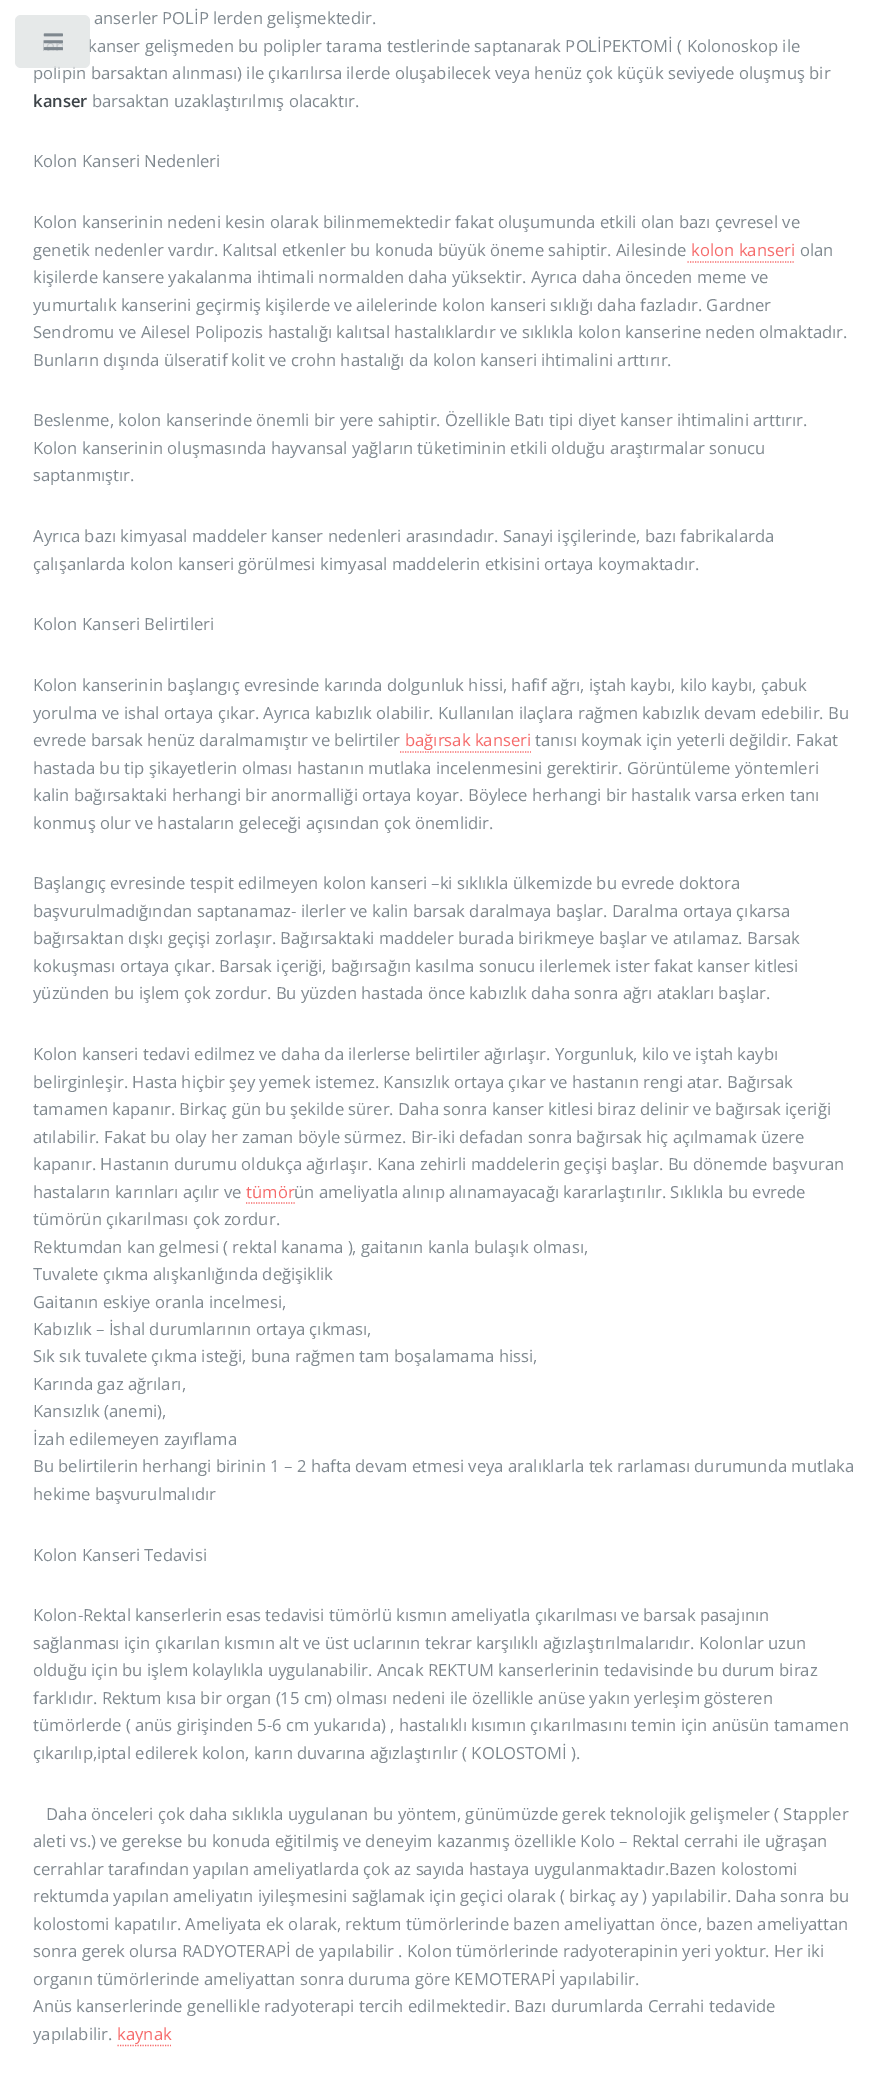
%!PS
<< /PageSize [888 2100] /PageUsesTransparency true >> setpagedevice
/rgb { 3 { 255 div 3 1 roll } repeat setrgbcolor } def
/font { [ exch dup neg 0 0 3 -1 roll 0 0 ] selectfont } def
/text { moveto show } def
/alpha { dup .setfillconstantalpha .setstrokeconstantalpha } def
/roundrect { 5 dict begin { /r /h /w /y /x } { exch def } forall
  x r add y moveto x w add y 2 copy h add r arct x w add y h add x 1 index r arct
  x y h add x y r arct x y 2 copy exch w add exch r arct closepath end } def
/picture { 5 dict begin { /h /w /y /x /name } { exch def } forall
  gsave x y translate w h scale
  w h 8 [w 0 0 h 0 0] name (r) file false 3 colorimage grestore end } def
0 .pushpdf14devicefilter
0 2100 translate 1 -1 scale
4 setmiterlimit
255 255 255 rgb
0 0 888 2100 rectfill
245 106 106 rgb
1.2 setlinewidth
[1.25 1.25] 0 setdash
687.5 262 moveto 107.5 0 rlineto stroke
400 752 moveto 131 0 rlineto stroke
246 1203 moveto 49 0 rlineto stroke
117.5 2045.5 moveto 53.5 0 rlineto stroke
/OpenSans-Regular 16.65 font
127 136 143 rgb
(anserler POLİP lerden gelişmektedir.) 94 24 text
(kanser gelişmeden bu polipler tarama testlerinde saptanarak POLİPEKTOMİ \( Kolonoskop ile) 88 52 text
(polipin barsaktan alınması\) ile çıkarılırsa ilerde oluşabilecek veya henüz çok küçük seviyede oluşmuş bir) 33 79 text
/OpenSans-SemiBold 16.65 font
61 68 73 rgb
(kanser) 33 107 text
/OpenSans-Regular 16.65 font
127 136 143 rgb
(barsaktan uzaklaştırılmış olacaktır.) 92 107 text
(Kolon Kanseri Nedenleri) 33 167 text
(Kolon kanserinin nedeni kesin olarak bilinmemektedir fakat oluşumunda etkili olan bazı çevresel ve) 33 228 text
(genetik nedenler vardır. Kalıtsal etkenler bu konuda büyük öneme sahiptir. Ailesinde) 33 256 text
245 106 106 rgb
(kolon kanseri) 691 256 text
127 136 143 rgb
(olan) 800 256 text
(kişilerde kansere yakalanma ihtimali normalden daha yüksektir. Ayrıca daha önceden meme ve) 33 283 text
(yumurtalık kanserini geçirmiş kişilerde ve ailelerinde kolon kanseri sıklığı daha fazladır. Gardner) 33 311 text
(Sendromu ve Ailesel Polipozis hastalığı kalıtsal hastalıklardır ve sıklıkla kolon kanserine neden olmaktadır.) 33 338 text
(Bunların dışında ülseratif kolit ve crohn hastalığı da kolon kanseri ihtimalini arttırır.) 33 366 text
(Beslenme, kolon kanserinde önemli bir yere sahiptir. Özellikle Batı tipi diyet kanser ihtimalini arttırır.) 33 426 text
(Kolon kanserinin oluşmasında hayvansal yağların tüketiminin etkili olduğu araştırmalar sonucu) 33 454 text
(saptanmıştır.) 33 481 text
(Ayrıca bazı kimyasal maddeler kanser nedenleri arasındadır. Sanayi işçilerinde, bazı fabrikalarda) 33 542 text
(çalışanlarda kolon kanseri görülmesi kimyasal maddelerin etkisini ortaya koymaktadır.) 33 570 text
(Kolon Kanseri Belirtileri) 33 630 text
(Kolon kanserinin başlangıç evresinde karında dolgunluk hissi, hafif ağrı, iştah kaybı, kilo kaybı, çabuk) 33 691 text
(yorulma ve ishal ortaya çıkar. Ayrıca kabızlık olabilir. Kullanılan ilaçlara rağmen kabızlık devam edebilir. Bu) 33 719 text
(evrede barsak henüz daralmamıştır ve belirtiler) 33 746 text
245 106 106 rgb
(bağırsak kanseri) 405 746 text
127 136 143 rgb
(tanısı koymak için yeterli değildir. Fakat) 535 746 text
(hastada bu tip şikayetlerin olması hastanın mutlaka incelenmesini gerektirir. Görüntüleme yöntemleri) 33 774 text
(kalin bağırsaktaki herhangi bir anormalliği ortaya koyar. Böylece herhangi bir hastalık varsa erken tanı) 33 801 text
(konmuş olur ve hastaların geleceği açısından çok önemlidir.) 33 829 text
(Başlangıç evresinde tespit edilmeyen kolon kanseri –ki sıklıkla ülkemizde bu evrede doktora) 33 889 text
(başvurulmadığından saptanamaz- ilerler ve kalin barsak daralmaya başlar. Daralma ortaya çıkarsa) 33 917 text
(bağırsaktan dışkı geçişi zorlaşır. Bağırsaktaki maddeler burada birikmeye başlar ve atılamaz. Barsak) 33 944 text
(kokuşması ortaya çıkar. Barsak içeriği, bağırsağın kasılma sonucu ilerlemek ister fakat kanser kitlesi) 33 972 text
(yüzünden bu işlem çok zordur. Bu yüzden hastada önce kabızlık daha sonra ağrı atakları başlar.) 33 999 text
(Kolon kanseri tedavi edilmez ve daha da ilerlerse belirtiler ağırlaşır. Yorgunluk, kilo ve iştah kaybı) 33 1060 text
(belirginleşir. Hasta hiçbir şey yemek istemez. Kansızlık ortaya çıkar ve hastanın rengi atar. Bağırsak) 33 1088 text
(tamamen kapanır. Birkaç gün bu şekilde sürer. Daha sonra kanser kitlesi biraz delinir ve bağırsak içeriği) 33 1115 text
(atılabilir. Fakat bu olay her zaman böyle sürmez. Bir-iki defadan sonra bağırsak hiç açılmamak üzere) 33 1143 text
(kapanır. Hastanın durumu oldukça ağırlaşır. Kana zehirli maddelerin geçişi başlar. Bu dönemde başvuran) 33 1170 text
(hastaların karınları açılır ve) 33 1198 text
245 106 106 rgb
(tümör) 246 1198 text
127 136 143 rgb
(ün ameliyatla alınıp alınamayacağı kararlaştırılır. Sıklıkla bu evrede) 294 1198 text
(tümörün çıkarılması çok zordur.) 33 1225 text
(Rektumdan kan gelmesi \( rektal kanama \), gaitanın kanla bulaşık olması,) 33 1253 text
(Tuvalete çıkma alışkanlığında değişiklik) 33 1280 text
(Gaitanın eskiye oranla incelmesi,) 33 1308 text
(Kabızlık – İshal durumlarının ortaya çıkması,) 33 1335 text
(Sık sık tuvalete çıkma isteği, buna rağmen tam boşalamama hissi,) 33 1362 text
(Karında gaz ağrıları,) 33 1390 text
(Kansızlık \(anemi\),) 33 1417 text
(İzah edilemeyen zayıflama) 33 1445 text
(Bu belirtilerin herhangi birinin 1 – 2 hafta devam etmesi veya aralıklarla tek rarlaması durumunda mutlaka) 33 1472 text
(hekime başvurulmalıdır) 33 1500 text
(Kolon Kanseri Tedavisi) 33 1561 text
(Kolon-Rektal kanserlerin esas tedavisi tümörlü kısmın ameliyatla çıkarılması ve barsak pasajının) 33 1621 text
(sağlanması için çıkarılan kısmın alt ve üst uclarının tekrar karşılıklı ağızlaştırılmalarıdır. Kolonlar uzun) 33 1649 text
(olduğu için bu işlem kolaylıkla uygulanabilir. Ancak REKTUM kanserlerinin tedavisinde bu durum biraz) 33 1676 text
(farklıdır. Rektum kısa bir organ \(15 cm\) olması nedeni ile özellikle anüse yakın yerleşim gösteren) 33 1704 text
(tümörlerde \( anüs girişinden 5-6 cm yukarıda\) , hastalıklı kısımın çıkarılmasını temin için anüsün tamamen) 33 1731 text
(çıkarılıp,iptal edilerek kolon, karın duvarına ağızlaştırılır \( KOLOSTOMİ \).) 33 1759 text
(Daha önceleri çok daha sıklıkla uygulanan bu yöntem, günümüzde gerek teknolojik gelişmeler \( Stappler) 46 1820 text
(aleti vs.\) ve gerekse bu konuda eğitilmiş ve deneyim kazanmış özellikle Kolo – Rektal cerrahi ile uğraşan) 33 1847 text
(cerrahlar tarafından yapılan ameliyatlarda çok az sayıda hastaya uygulanmaktadır.Bazen kolostomi) 33 1875 text
(rektumda yapılan ameliyatın iyileşmesini sağlamak için geçici olarak \( birkaç ay \) yapılabilir. Daha sonra bu) 33 1902 text
(kolostomi kapatılır. Ameliyata ek olarak, rektum tümörlerinde bazen ameliyattan önce, bazen ameliyattan) 33 1930 text
(sonra gerek olursa RADYOTERAPİ de yapılabilir . Kolon tümörlerinde radyoterapinin yeri yoktur. Her iki) 33 1957 text
(organın tümörlerinde ameliyattan sonra duruma göre KEMOTERAPİ yapılabilir.) 33 1985 text
(Anüs kanserlerinde genellikle radyoterapi tercih edilmektedir. Bazı durumlarda Cerrahi tedavide) 33 2012 text
(yapılabilir.) 33 2040 text
245 106 106 rgb
(kaynak) 117 2040 text
0.75 alpha
222 225 226 rgb
15 15 75 53 6 roundrect fill
1 alpha
(img_01.rgb) 43 33 20 18 picture
.poppdf14devicefilter showpage
